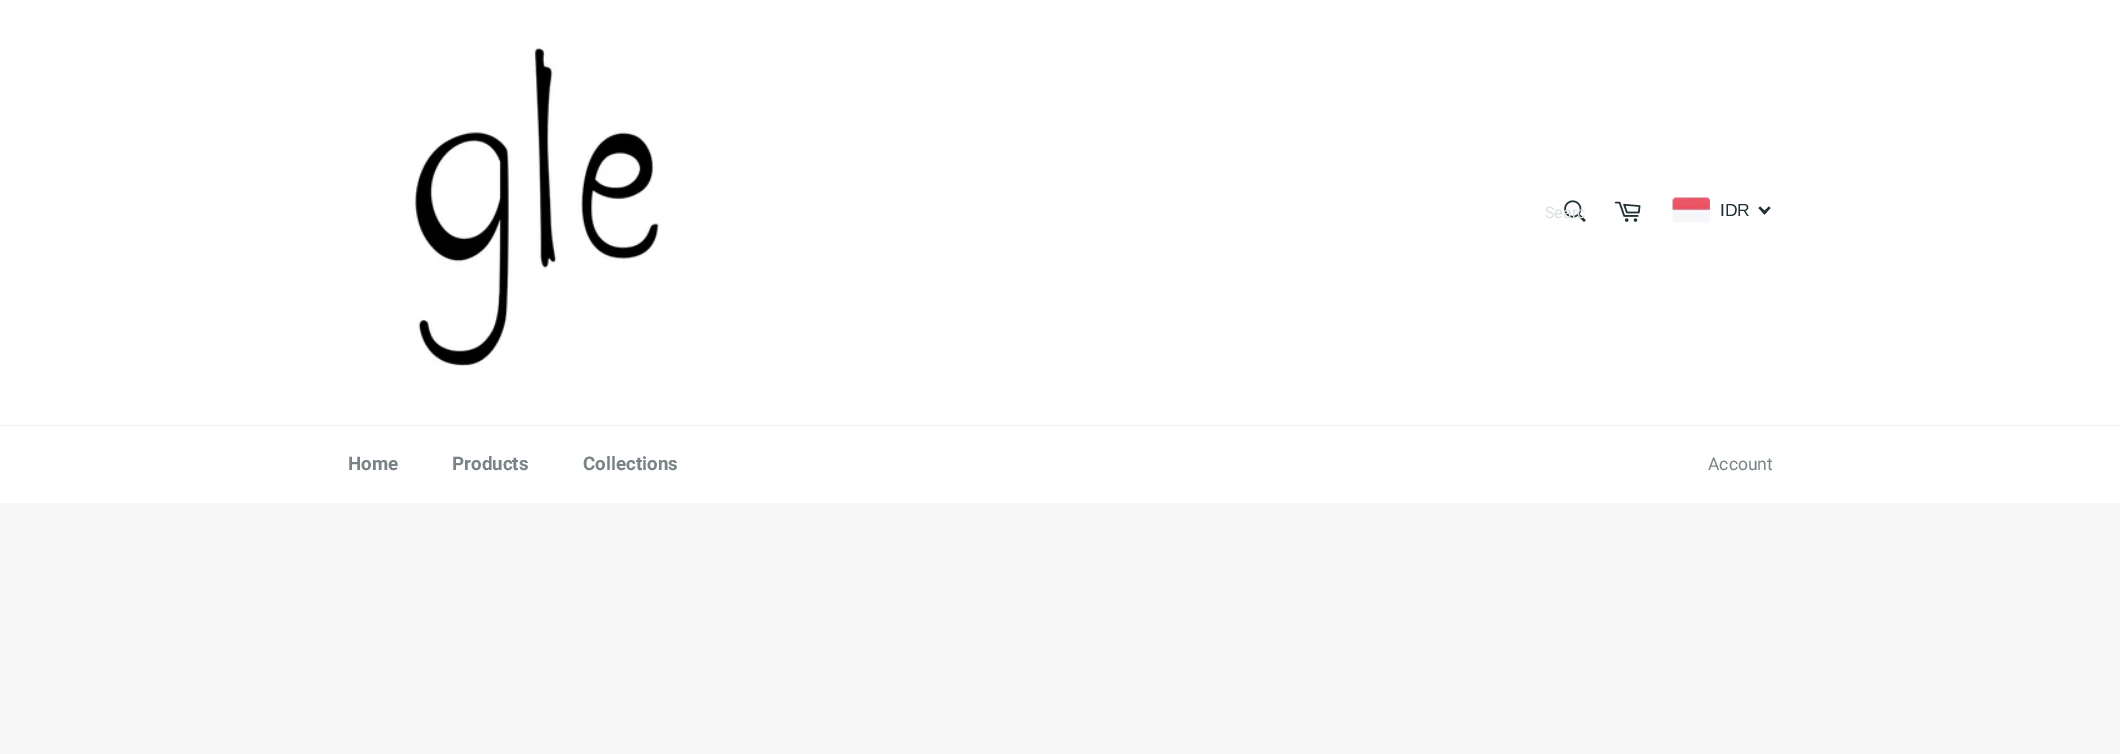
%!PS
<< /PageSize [2120 754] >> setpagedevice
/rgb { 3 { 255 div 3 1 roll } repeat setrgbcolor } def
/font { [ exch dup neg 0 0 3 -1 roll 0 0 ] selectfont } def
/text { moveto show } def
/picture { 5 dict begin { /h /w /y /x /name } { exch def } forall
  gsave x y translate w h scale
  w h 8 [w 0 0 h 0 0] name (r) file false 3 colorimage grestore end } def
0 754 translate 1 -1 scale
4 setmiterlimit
247 247 247 rgb
0 0 2120 754 rectfill
255 255 255 rgb
0 0 2120 425 rectfill
(img_01.rgb) 413 46 248 321 picture
(img_02.rgb) 1564 200 22 22 picture
(img_03.rgb) 1614 201 27 21 picture
(img_04.rgb) 1672 197 38 26 picture
33 50 54 rgb
1769 206.5 moveto 1.5 1.5 rlineto -6 6.5 rlineto -2 -2 rlineto closepath fill
1760 206.5 moveto 6.5 6 rlineto -2 2 rlineto -6 -6.5 rlineto closepath fill
255 255 255 rgb
0 426 2120 77 rectfill
242 242 242 rgb
0 425 2120 1 rectfill
gsave
1545 204 40 19 rectclip
/Roboto-Regular 16 font
220 222 223 rgb
(Searc) 1545 218 text
grestore
/LiberationSans-Regular 17.5 font
33 50 54 rgb
(IDR) 1720 216 text
/Roboto-Bold 18.75 font
122 132 134 rgb
(Home) 348 470 text
(Products) 452 470 text
(Collections) 583 470 text
/Roboto-Regular 17.5 font
(Account) 1708 470 text
showpage
